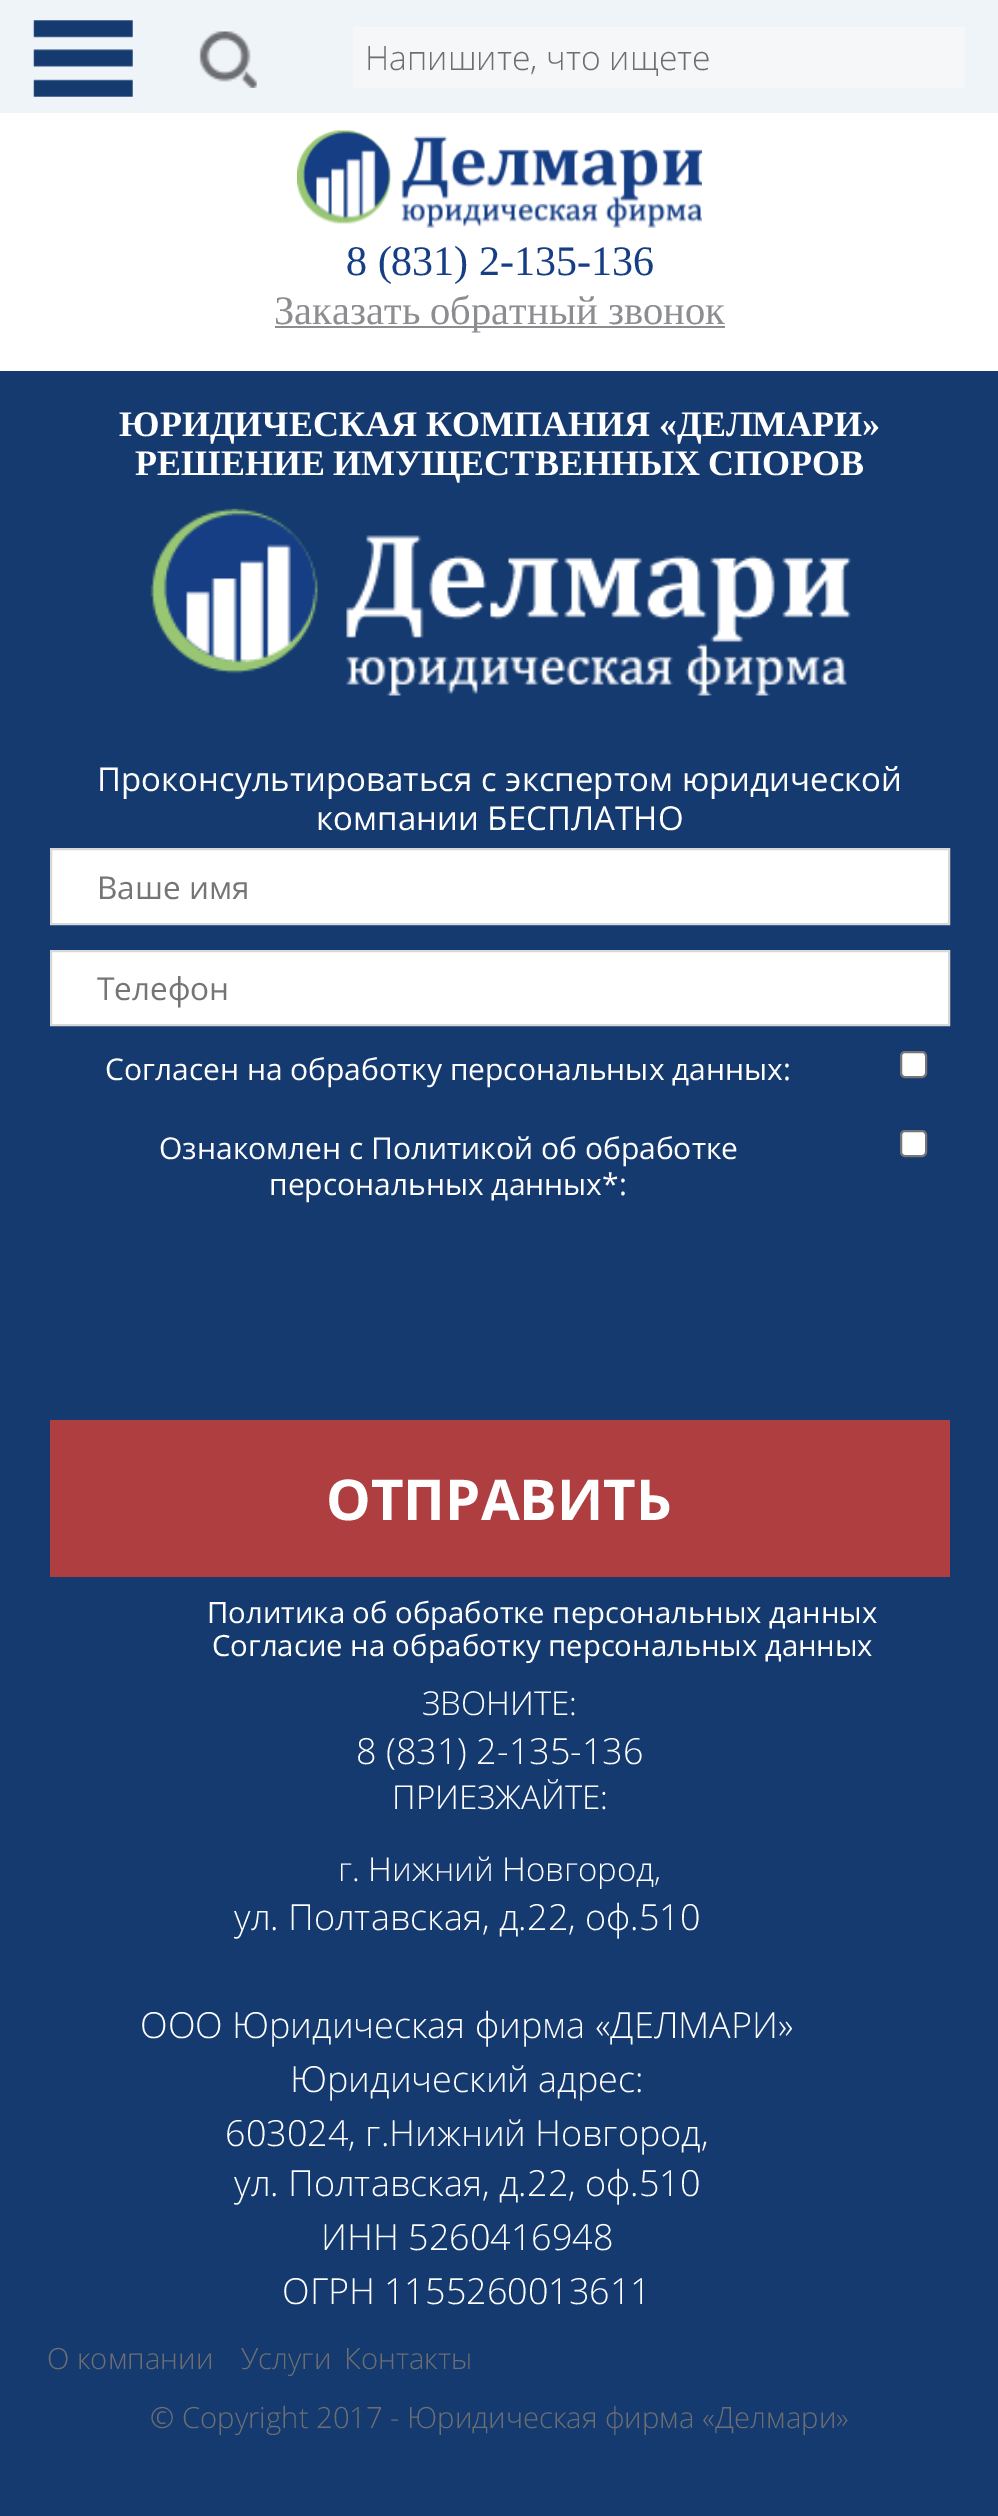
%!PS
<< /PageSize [998 2516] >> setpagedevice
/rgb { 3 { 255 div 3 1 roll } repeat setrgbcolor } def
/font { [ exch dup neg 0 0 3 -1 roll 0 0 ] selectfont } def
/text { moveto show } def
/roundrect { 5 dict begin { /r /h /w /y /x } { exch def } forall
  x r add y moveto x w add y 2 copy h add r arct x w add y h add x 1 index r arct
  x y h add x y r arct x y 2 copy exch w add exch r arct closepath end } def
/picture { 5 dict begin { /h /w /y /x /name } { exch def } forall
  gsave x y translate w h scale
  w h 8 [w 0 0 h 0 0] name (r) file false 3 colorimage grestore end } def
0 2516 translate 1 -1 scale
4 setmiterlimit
20 58 112 rgb
0 0 998 2516 rectfill
255 255 255 rgb
0 113 998 258 rectfill
239 244 248 rgb
0 0 998 113 rectfill
(img_01.rgb) 33 20 100 77 picture
(img_02.rgb) 199 31 58 57 picture
245 247 249 rgb
353 27 612 61 rectfill
(img_03.rgb) 297 130 405 98 picture
140 141 144 rgb
275 326 450 2 rectfill
(img_04.rgb) 150 508 701 188 picture
255 255 255 rgb
51 849 moveto 898 0 rlineto 0 75 rlineto -898 0 rlineto closepath gsave fill grestore
216 216 216 rgb
2 setlinewidth
stroke
255 255 255 rgb
51 951 moveto 898 0 rlineto 0 74 rlineto -898 0 rlineto closepath gsave fill grestore
216 216 216 rgb
stroke
255 255 255 rgb
901 1052 25 25 4 roundrect gsave fill grestore
118 118 118 rgb
stroke
255 255 255 rgb
901 1131 25 25 4 roundrect gsave fill grestore
118 118 118 rgb
stroke
174 62 63 rgb
50 1420 900 157 rectfill
/OpenSans-Light 33.75 font
109 110 113 rgb
(Напишите, что ищете) 365 70 text
/LiberationSerif-Regular 42 font
22 62 133 rgb
(8 \(831\) 2-135-136) 346 275 text
/LiberationSerif-Regular 40.5 font
140 141 144 rgb
(Заказать обратный звонок) 274 324 text
/LiberationSerif-Bold 36 font
255 255 255 rgb
(ЮРИДИЧЕСКАЯ КОМПАНИЯ «ДЕЛМАРИ») 119 436 text
135 475 moveto -1 0 32 (РЕШЕНИЕ ИМУЩЕСТВЕННЫХ СПОРОВ) widthshow
/OpenSans-Regular 33 font
(Проконсультироваться с экспертом юридической) 97 791 text
(компании БЕСПЛАТНО) 316 830 text
/OpenSans-Regular 31.5 font
117 117 117 rgb
(Ваше имя) 97 899 text
(Телефон) 97 1000 text
/OpenSans-Regular 30 font
255 255 255 rgb
(Согласен на обработку персональных данных:) 105 1080 text
(Ознакомлен с Политикой об обработке) 159 1159 text
(персональных данных*:) 269 1195 text
/OpenSans-Bold 56.25 font
(ОТПРАВИТЬ) 326 1520 text
/OpenSans-Regular 29.25 font
(Политика об обработке персональных данных) 207 1623 text
(Согласие на обработку персональных данных) 212 1656 text
/OpenSans-Light 33 font
(ЗВОНИТЕ:) 422 1715 text
/OpenSans-Light 36 font
(8 \(831\) 2-135-136) 356 1764 text
/OpenSans-Light 33 font
(ПРИЕЗЖАЙТЕ:) 392 1809 text
(г. Нижний Новгород,) 338 1881 text
/OpenSans-Light 36 font
(ул. Полтавская, д.22, оф.510) 234 1930 text
(ООО Юридическая фирма «ДЕЛМАРИ») 140 2038 text
(Юридический адрес:) 290 2092 text
(603024, г.Нижний Новгород,) 225 2146 text
(ул. Полтавская, д.22, оф.510) 234 2196 text
(ИНН 5260416948) 321 2250 text
(ОГРН 1155260013611) 282 2304 text
/OpenSans-Light 29.25 font
109 110 113 rgb
(О компании) 47 2369 text
(Услуги) 241 2369 text
(Контакты) 344 2369 text
(© Copyright 2017 - Юридическая фирма «Делмари») 150 2428 text
showpage
